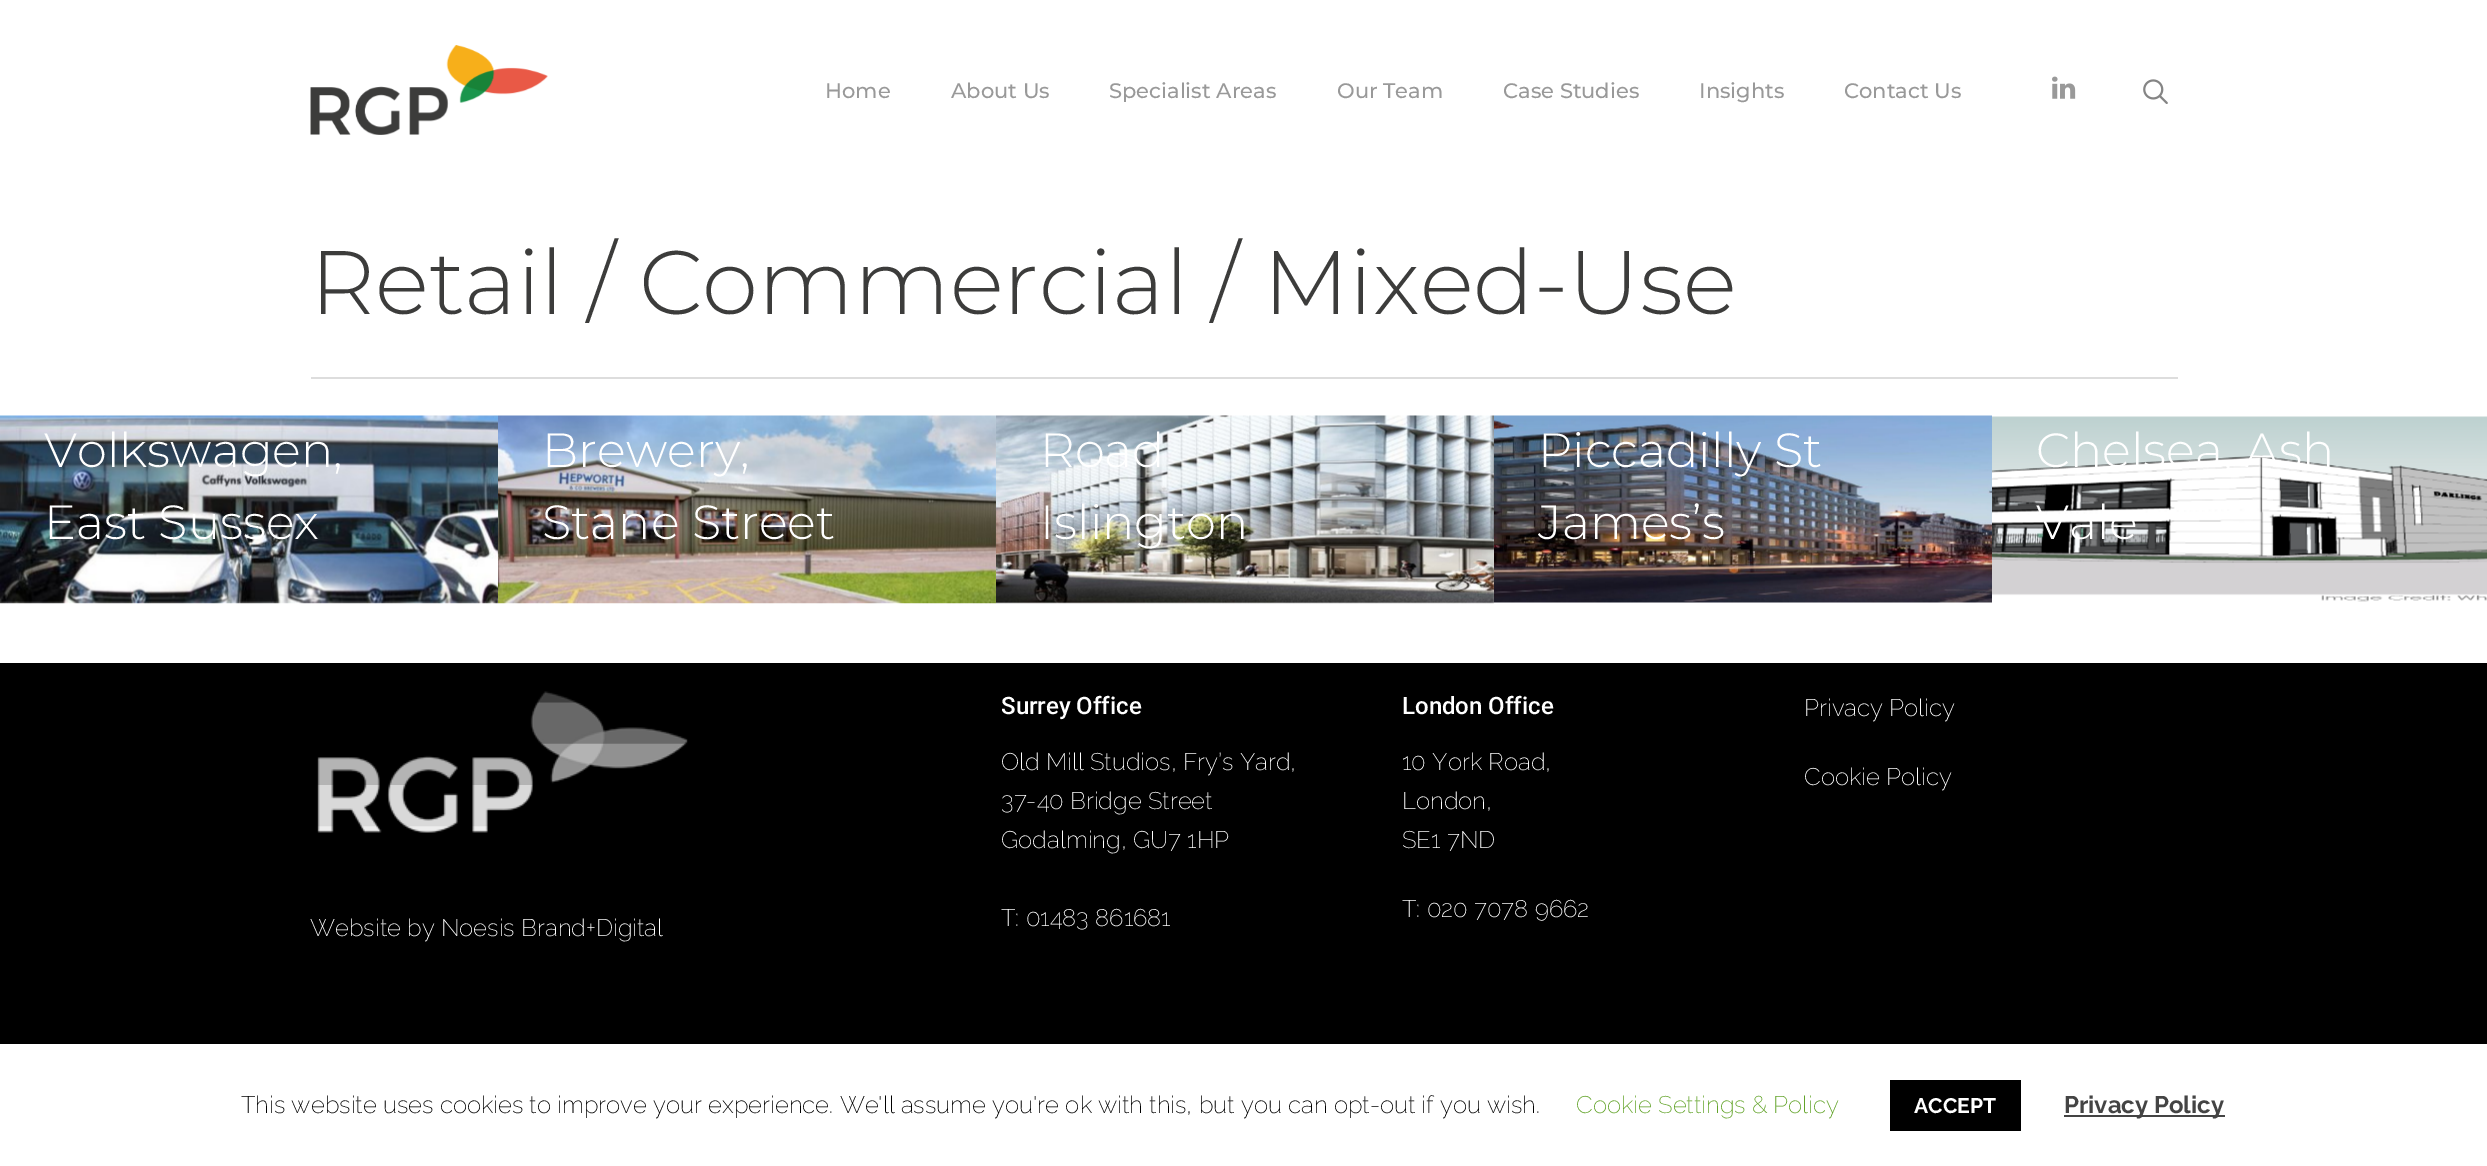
%!PS
<< /PageSize [2487 1166] /PageUsesTransparency true >> setpagedevice
/rgb { 3 { 255 div 3 1 roll } repeat setrgbcolor } def
/font { [ exch dup neg 0 0 3 -1 roll 0 0 ] selectfont } def
/text { moveto show } def
/alpha { dup .setfillconstantalpha .setstrokeconstantalpha } def
/roundrect { 5 dict begin { /r /h /w /y /x } { exch def } forall
  x r add y moveto x w add y 2 copy h add r arct x w add y h add x 1 index r arct
  x y h add x y r arct x y 2 copy exch w add exch r arct closepath end } def
/shadow { 12 dict begin { /a /b /q /h /w /y /x } { exch def } forall gsave /was 0 def
  9 -2 -9 { dup b mul 4 div /e exch def 1 sub .425 mul 2.718 exch exp 1 add a .99 .min exch div /now exch def
    1 1 now sub 1 was sub div sub alpha /was now def
    w h .min e 2 mul add 0 gt { x e sub y e sub w e 2 mul add h e 2 mul add
      q e add b .6 mul add w h .min 2 div e add .min 0 .max roundrect fill } if } for grestore end } def
/picture { 5 dict begin { /h /w /y /x /name } { exch def } forall
  gsave x y translate w h scale
  w h 8 [w 0 0 h 0 0] name (r) file false 3 colorimage grestore end } def
0 .pushpdf14devicefilter
0 1166 translate 1 -1 scale
4 setmiterlimit
255 255 255 rgb
0 0 2487 1166 rectfill
(img_01.rgb) 310 45 238 90 picture
(img_02.rgb) 2052 76 24 23 picture
(img_03.rgb) 2143 79 25 25 picture
0 0 0 rgb
0 663 2487 381 rectfill
(img_09.rgb) 317 691 371 142 picture
45 528 2397 195 0 82.5 1 shadow
255 255 255 rgb
0 336 2487 327 rectfill
221 221 221 rgb
311 377 1867 2 rectfill
(img_04.rgb) 0 415 498 189 picture
(img_05.rgb) 498 415 498 189 picture
(img_06.rgb) 996 415 498 189 picture
(img_07.rgb) 1494 415 498 188 picture
(img_08.rgb) 1992 416 495 186 picture
0 0 0 rgb
1890 1080 131 51 rectfill
68 68 68 rgb
2064 1115 161 2 rectfill
/Montserrat-Medium 21 font
153 153 153 rgb
(Home) 825 98 text
(About Us) 951 98 text
(Specialist Areas) 1109 98 text
(Our Team) 1337 98 text
(Case Studies) 1503 98 text
(Insights) 1699 98 text
(Contact Us) 1844 98 text
/Montserrat-Light 90 font
60 60 59 rgb
(Retail / Commercial / Mixed-Use) 310 314 text
/Montserrat-Light 48 font
255 255 255 rgb
(Volkswagen,) 44 467 text
(East Sussex) 44 539 text
(Brewery,) 542 467 text
(Stane Street) 542 539 text
(Road) 1040 467 text
(Islington) 1040 539 text
(Piccadilly St) 1538 467 text
(James’s) 1538 539 text
(Chelsea, Ash) 2036 467 text
(Vale) 2036 539 text
/Roboto-Medium 24 font
(Surrey Office) 1001 714 text
/Raleway-ExtraLight 24 font
(Old Mill Studios, Fry’s Yard,) 1001 770 text
(37-40 Bridge Street) 1001 809 text
(Godalming, GU7 1HP) 1001 848 text
(T: 01483 861681) 1001 926 text
/Roboto-Medium 24 font
(London Office) 1402 714 text
/Raleway-ExtraLight 24 font
(10 York Road,) 1402 770 text
(London,) 1402 809 text
(SE1 7ND) 1402 848 text
(T: 020 7078 9662) 1402 917 text
(Privacy Policy) 1804 716 text
(Cookie Policy) 1804 785 text
(Website by Noesis Brand+Digital) 310 936 text
0 0 0 rgb
(This website uses cookies to improve your experience. We'll assume you're ok with this, but you can opt-out if you wish.) 241 1113 text
98 163 41 rgb
(Cookie Settings & Policy) 1576 1113 text
/Raleway-Bold 21 font
255 255 255 rgb
(ACCEPT) 1914 1113 text
/Raleway-Bold 24 font
68 68 68 rgb
(Privacy Policy) 2064 1113 text
.poppdf14devicefilter showpage
